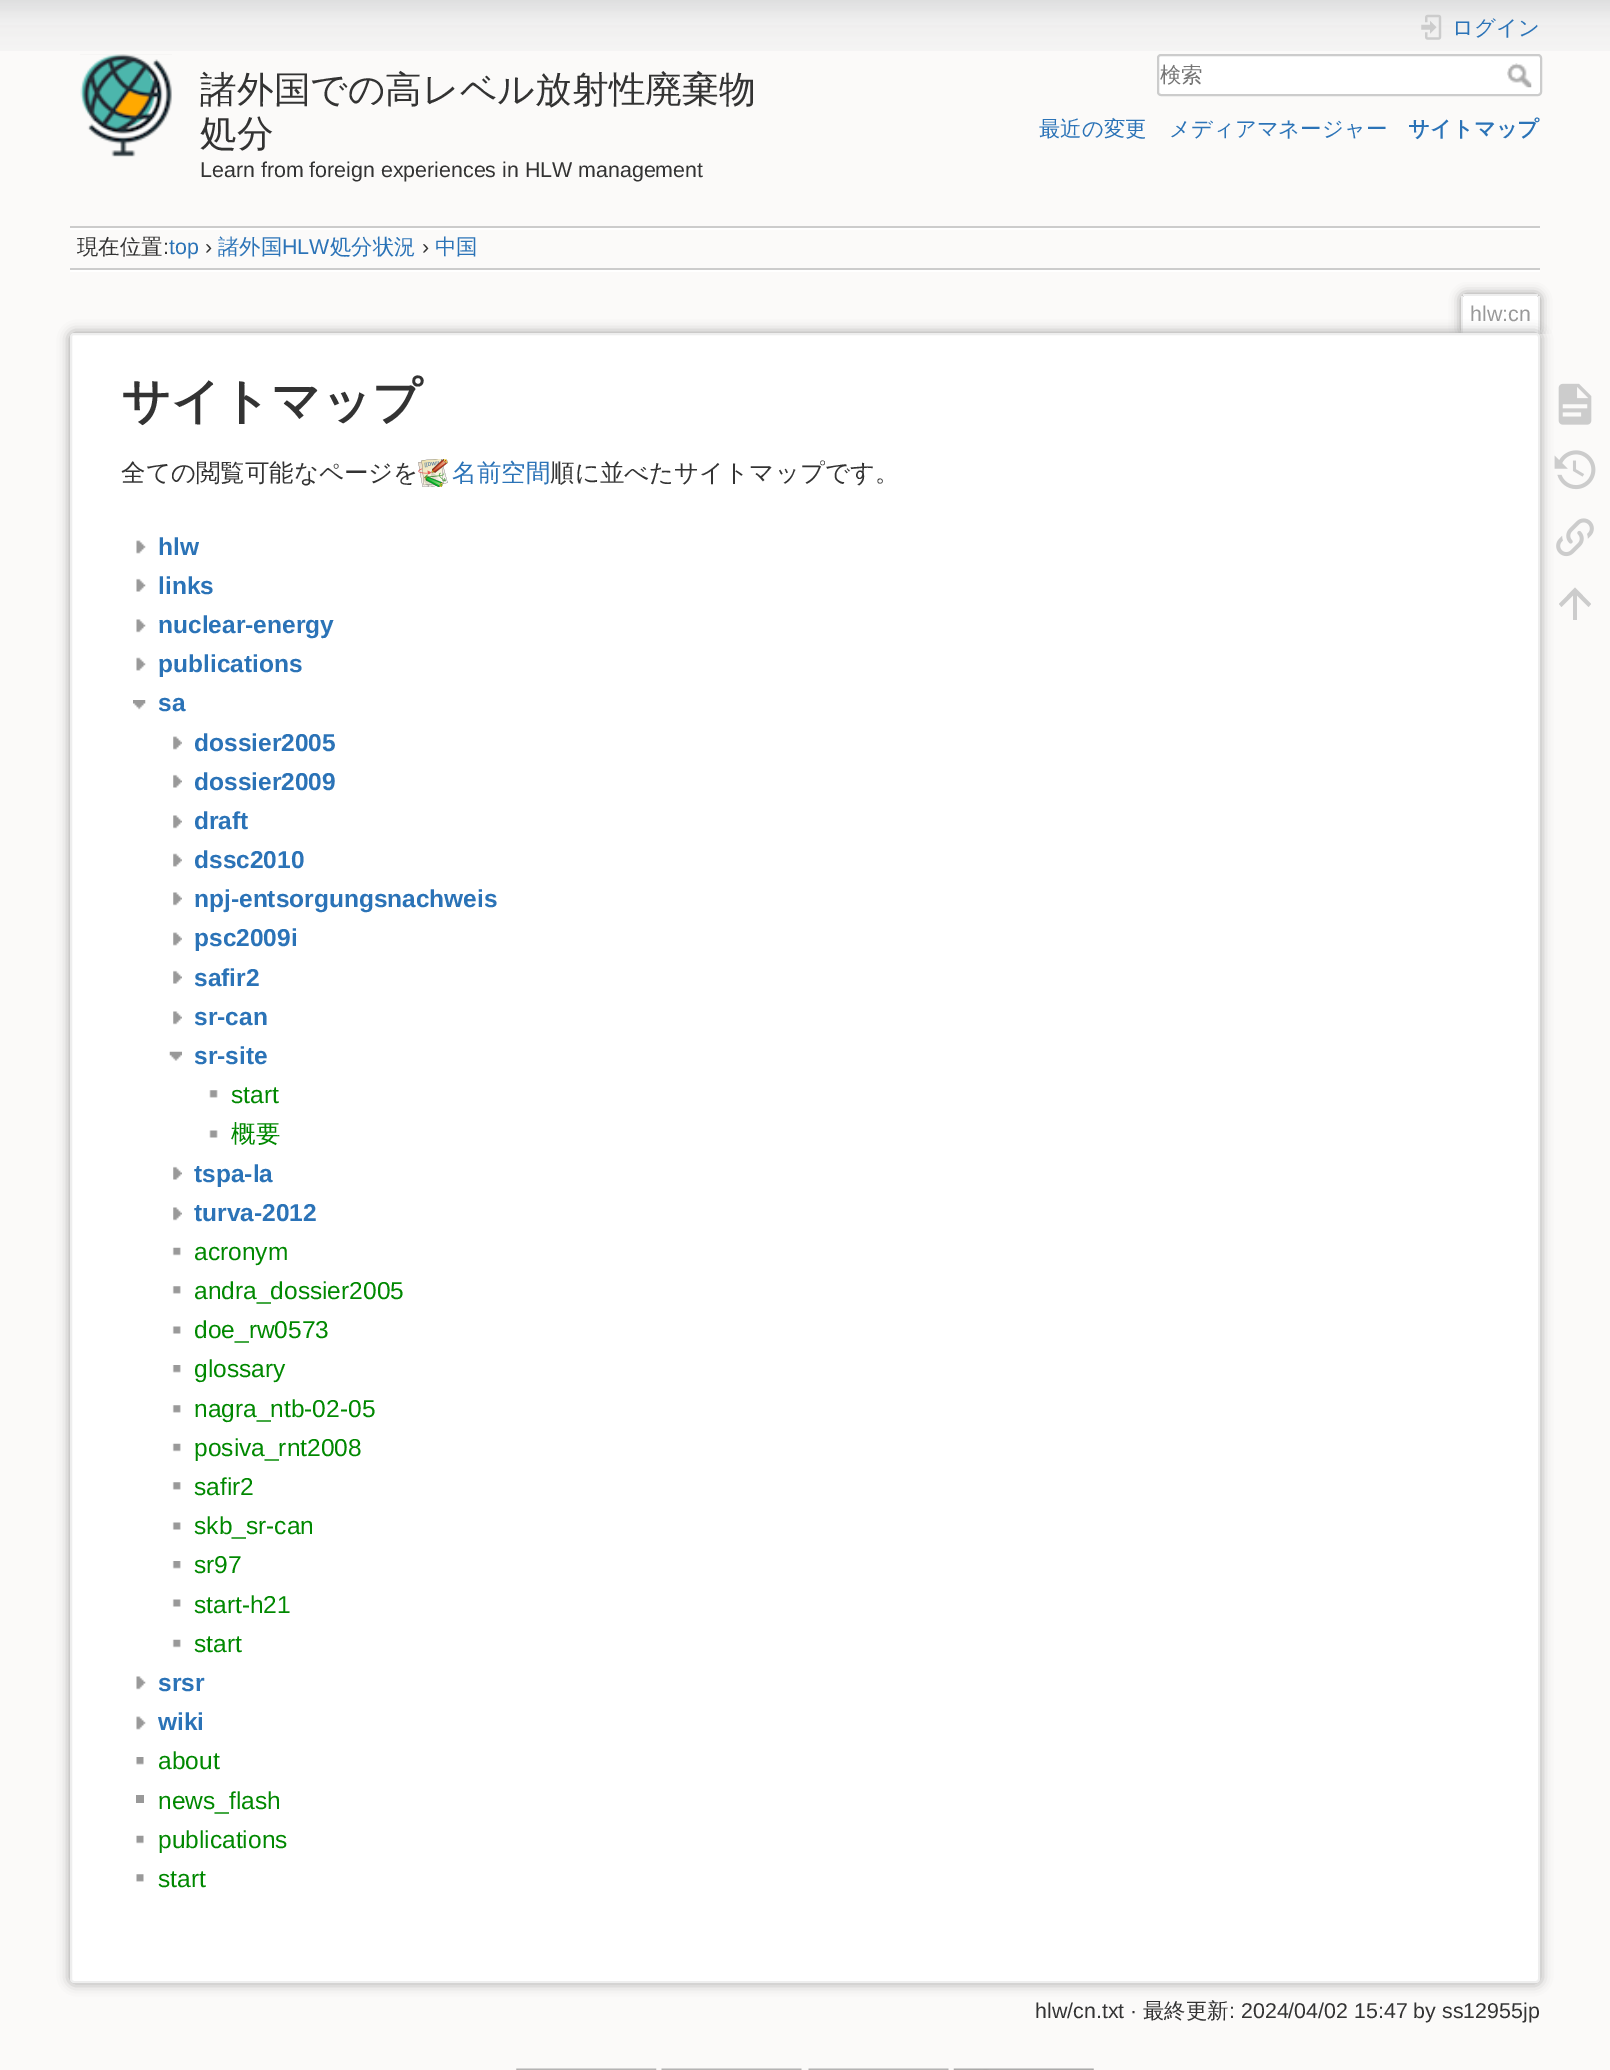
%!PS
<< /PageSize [1610 2070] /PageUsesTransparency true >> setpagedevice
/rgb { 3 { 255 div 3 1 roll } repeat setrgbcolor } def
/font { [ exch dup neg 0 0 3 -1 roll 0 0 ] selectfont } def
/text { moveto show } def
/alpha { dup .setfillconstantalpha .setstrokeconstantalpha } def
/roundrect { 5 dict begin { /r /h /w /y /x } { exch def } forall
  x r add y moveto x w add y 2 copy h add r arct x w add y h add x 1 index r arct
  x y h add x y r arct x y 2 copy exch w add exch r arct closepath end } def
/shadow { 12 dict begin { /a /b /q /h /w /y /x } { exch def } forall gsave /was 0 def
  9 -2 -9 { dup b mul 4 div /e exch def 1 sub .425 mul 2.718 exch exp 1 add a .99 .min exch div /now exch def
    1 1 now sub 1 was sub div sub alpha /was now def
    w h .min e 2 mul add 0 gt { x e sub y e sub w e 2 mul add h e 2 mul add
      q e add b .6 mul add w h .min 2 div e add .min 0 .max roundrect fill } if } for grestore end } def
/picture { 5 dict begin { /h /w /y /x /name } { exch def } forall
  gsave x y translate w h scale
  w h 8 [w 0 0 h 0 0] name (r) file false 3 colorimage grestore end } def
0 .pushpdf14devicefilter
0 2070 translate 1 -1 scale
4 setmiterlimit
251 250 249 rgb
0 0 1610 2070 rectfill
(img_01.rgb) 0 0 1610 51 picture
(img_02.rgb) 80 54 92 103 picture
(img_03.rgb) 1421 14 21 26 picture
255 255 255 rgb
1158 55 383 40 3 roundrect gsave fill grestore
204 204 204 rgb
2 setlinewidth
stroke
(img_04.rgb) 1507 63 25 25 picture
70 226 1470 2 rectfill
255 255 255 rgb
70 270 1470 2 rectfill
70 228 1470 2 rectfill
204 204 204 rgb
70 268 1470 2 rectfill
gsave
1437 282 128 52 rectclip
153 153 153 rgb
1461 294 79 40 4 5.5 1 shadow
grestore
255 255 255 rgb
1465 296 moveto 71 0 rlineto 1 0 2 1 2 2 rcurveto 0 36 rlineto -75 0 rlineto 0 -36 rlineto 0 -1 1 -2 2 -2 rcurveto closepath fill
238 238 238 rgb
1463 294 75 2 rectfill
1538 296 2 38 rectfill
1461 296 2 38 rectfill
153 153 153 rgb
70 333 1470 1650 4 6 1 shadow
255 255 255 rgb
71 334 1468 1648 3 roundrect gsave fill grestore
238 238 238 rgb
stroke
(img_05.rgb) 418 459 30 28 picture
(img_06.rgb) 136 540 10 14 picture
(img_07.rgb) 136 578 10 14 picture
(img_08.rgb) 136 619 10 14 picture
(img_09.rgb) 136 657 10 14 picture
(img_10.rgb) 133 700 13 10 picture
(img_11.rgb) 173 736 9 14 picture
(img_12.rgb) 173 774 9 14 picture
(img_13.rgb) 173 815 9 14 picture
(img_14.rgb) 173 853 9 14 picture
(img_13.rgb) 173 892 9 14 picture
(img_11.rgb) 173 932 9 14 picture
(img_12.rgb) 173 970 9 14 picture
(img_13.rgb) 173 1011 9 14 picture
(img_15.rgb) 169 1051 13 10 picture
(img_16.rgb) 209 1090 9 8 picture
(img_17.rgb) 209 1130 9 8 picture
(img_12.rgb) 173 1166 9 14 picture
(img_13.rgb) 173 1207 9 14 picture
(img_18.rgb) 172 1247 9 9 picture
(img_19.rgb) 172 1286 9 8 picture
(img_20.rgb) 172 1326 9 8 picture
(img_21.rgb) 172 1365 9 8 picture
(img_19.rgb) 172 1405 9 8 picture
(img_18.rgb) 172 1443 9 9 picture
(img_19.rgb) 172 1482 9 8 picture
(img_20.rgb) 172 1522 9 8 picture
(img_21.rgb) 172 1561 9 8 picture
(img_20.rgb) 172 1599 9 8 picture
(img_18.rgb) 172 1639 9 9 picture
(img_08.rgb) 136 1676 10 14 picture
(img_06.rgb) 136 1716 10 14 picture
(img_22.rgb) 136 1757 8 8 picture
153 153 153 rgb
136 1795 8 8 rectfill
(img_23.rgb) 136 1835 8 9 picture
(img_24.rgb) 136 1874 8 8 picture
(img_25.rgb) 1558 383 34 42 picture
(img_26.rgb) 1554 450 42 40 picture
(img_27.rgb) 1556 518 38 39 picture
204 204 204 rgb
1577 620 moveto -4 0 rlineto 0 -24.5 rlineto -11.5 11.5 rlineto -2.5 -3 rlineto 16 -16.5 rlineto 16 16.5 rlineto -2.5 3 rlineto -11.5 -11.5 rlineto closepath fill
(img_28.rgb) 516 2068 141 2 picture
(img_29.rgb) 661 2068 141 2 picture
(img_29.rgb) 808 2068 141 2 picture
(img_30.rgb) 953 2068 141 2 picture
/WenQuanYiZenHei-Medium 36.75 font
51 51 51 rgb
(諸外国での高レベル放射性廃棄物) 200 102 text
(処分) 200 146 text
/LiberationSans-Regular 21.4 font
(Learn from foreign experiences in HLW management) 200 177 text
/WenQuanYiZenHei-Medium 21.4 font
43 115 183 rgb
(ログイン) 1452 35 text
117 117 117 rgb
(検索) 1160 82 text
43 115 183 rgb
(最近の変更) 1039 136 text
(メディアマネージャー) 1169 136 text
/WenQuanYiZenHei-Bold 21.4 font
(サイトマップ) 1408 136 text
/WenQuanYiZenHei-Medium 21.4 font
51 51 51 rgb
(現在位置) 77 254 text
/LiberationSans-Regular 21.4 font
(:) 163 254 text
43 115 183 rgb
(top) 169 254 text
51 51 51 rgb
(›) 205 254 text
/WenQuanYiZenHei-Medium 21.4 font
43 115 183 rgb
(諸外国) 218 254 text
/LiberationSans-Regular 21.4 font
(HLW) 282 254 text
/WenQuanYiZenHei-Medium 21.4 font
(処分状況) 330 254 text
/LiberationSans-Regular 21.4 font
51 51 51 rgb
(›) 422 254 text
/WenQuanYiZenHei-Medium 21.4 font
43 115 183 rgb
(中国) 435 254 text
/LiberationSans-Regular 21.4 font
153 153 153 rgb
(hlw:cn) 1470 321 text
/WenQuanYiZenHei-Bold 49 font
51 51 51 rgb
(サイトマップ) 121 418 text
/WenQuanYiZenHei-Medium 24.5 font
(全ての閲覧可能なページを) 121 481 text
43 115 183 rgb
(名前空間) 452 481 text
51 51 51 rgb
(順に並べたサイトマップです。) 550 481 text
/LiberationSans-Bold 24.5 font
43 115 183 rgb
(hlw) 158 555 text
(links) 158 594 text
(nuclear-energy) 158 633 text
(publications) 158 672 text
(sa) 158 711 text
(dossier2005) 194 751 text
(dossier2009) 194 790 text
(draft) 194 829 text
(dssc2010) 194 868 text
(npj-entsorgungsnachweis) 194 907 text
(psc2009i) 194 946 text
(safir2) 194 986 text
(sr-can) 194 1025 text
(sr-site) 194 1064 text
/LiberationSans-Regular 24.5 font
0 136 0 rgb
(start) 231 1103 text
/WenQuanYiZenHei-Medium 24.5 font
(概要) 231 1142 text
/LiberationSans-Bold 24.5 font
43 115 183 rgb
(tspa-la) 194 1182 text
(turva-2012) 194 1221 text
/LiberationSans-Regular 24.5 font
0 136 0 rgb
(acronym) 194 1260 text
(andra_dossier2005) 194 1299 text
(doe_rw0573) 194 1338 text
(glossary) 194 1377 text
(nagra_ntb-02-05) 194 1417 text
(posiva_rnt2008) 194 1456 text
(safir2) 194 1495 text
(skb_sr-can) 194 1534 text
(sr97) 194 1573 text
(start-h21) 194 1613 text
(start) 194 1652 text
/LiberationSans-Bold 24.5 font
43 115 183 rgb
(srsr) 158 1691 text
(wiki) 158 1730 text
/LiberationSans-Regular 24.5 font
0 136 0 rgb
(about) 158 1769 text
(news_flash) 158 1809 text
(publications) 158 1848 text
(start) 158 1887 text
/LiberationSans-Regular 21.4 font
51 51 51 rgb
(hlw/cn.txt ·) 1035 2018 text
/WenQuanYiZenHei-Medium 21.4 font
(最終更新) 1143 2018 text
/LiberationSans-Regular 21.4 font
(: 2024/04/02 15:47 by ss12955jp) 1229 2018 text
.poppdf14devicefilter showpage
